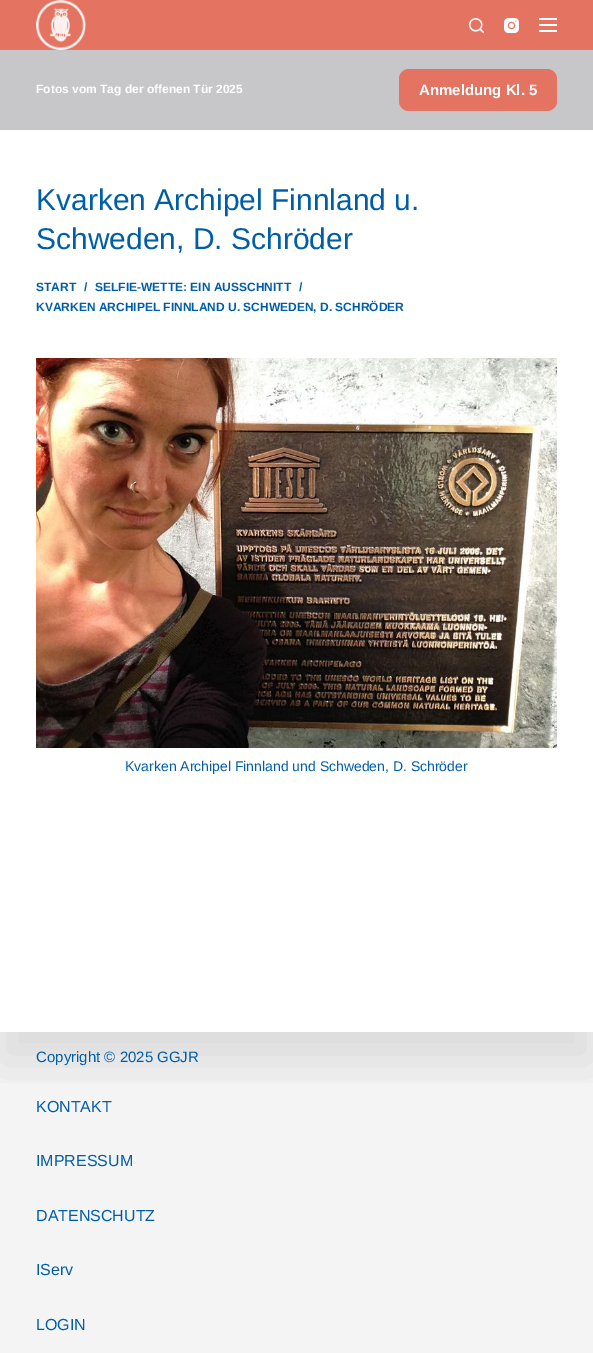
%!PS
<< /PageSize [593 1353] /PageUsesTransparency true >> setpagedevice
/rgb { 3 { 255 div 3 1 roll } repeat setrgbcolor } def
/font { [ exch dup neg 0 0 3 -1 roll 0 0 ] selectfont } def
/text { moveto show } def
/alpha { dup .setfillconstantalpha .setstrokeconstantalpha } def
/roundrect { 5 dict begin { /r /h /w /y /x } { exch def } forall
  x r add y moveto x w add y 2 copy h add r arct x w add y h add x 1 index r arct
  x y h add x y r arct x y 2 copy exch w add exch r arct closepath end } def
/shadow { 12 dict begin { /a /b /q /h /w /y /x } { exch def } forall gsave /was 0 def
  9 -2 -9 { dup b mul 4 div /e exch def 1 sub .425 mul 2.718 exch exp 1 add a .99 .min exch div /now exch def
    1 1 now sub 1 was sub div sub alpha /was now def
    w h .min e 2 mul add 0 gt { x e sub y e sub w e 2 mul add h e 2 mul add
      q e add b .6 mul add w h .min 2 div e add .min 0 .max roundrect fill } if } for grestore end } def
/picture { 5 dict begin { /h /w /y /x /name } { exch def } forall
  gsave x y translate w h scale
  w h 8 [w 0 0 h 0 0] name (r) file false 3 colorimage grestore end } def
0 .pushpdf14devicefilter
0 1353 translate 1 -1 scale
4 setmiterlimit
255 255 255 rgb
0 0 593 1353 rectfill
228 116 97 rgb
0 0 593 50 rectfill
(img_01.rgb) 36 0 50 50 picture
(img_02.rgb) 469 18 15 15 picture
(img_03.rgb) 504 18 15 15 picture
255 255 255 rgb
539 18 18 2 1 roundrect fill
539 24 18 2 1 roundrect fill
539 30 18 2 1 roundrect fill
244 244 245 rgb
0 1032 593 321 rectfill
gsave
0 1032 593 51 rectclip
0 0 0 rgb
0 160 593 902 0 25 0.1 shadow
grestore
0.23 alpha
14 12 28 rgb
0 50 593 80 rectfill
1 alpha
228 116 97 rgb
399 69 158 42 10 roundrect fill
(img_04.rgb) 36 358 521 390 picture
/LiberationSans-Bold 12 font
255 255 255 rgb
(Fotos vom Tag der offenen Tür 2025) 36 93 text
/LiberationSans-Bold 15 font
(Anmeldung Kl. 5) 419 95 text
/LiberationSans-Regular 30 font
0 94 168 rgb
(Kvarken Archipel Finnland u.) 36 210 text
(Schweden, D. Schröder) 36 249 text
/LiberationSans-Bold 12 font
(START) 36 291 text
(/) 84 291 text
(SELFIE-WETTE: EIN AUSSCHNITT) 95 291 text
(/) 299 291 text
(KVARKEN ARCHIPEL FINNLAND U. SCHWEDEN, D. SCHRÖDER) 36 311 text
/LiberationSans-Regular 14 font
(Kvarken Archipel Finnland und Schweden, D. Schröder) 125 771 text
/LiberationSans-Regular 15 font
(Copyright © 2025 GGJR) 36 1062 text
/LiberationSans-Regular 16 font
(KONTAKT) 36 1112 text
(IMPRESSUM) 36 1166 text
(DATENSCHUTZ) 36 1221 text
(IServ) 36 1275 text
(LOGIN) 36 1330 text
.poppdf14devicefilter showpage
